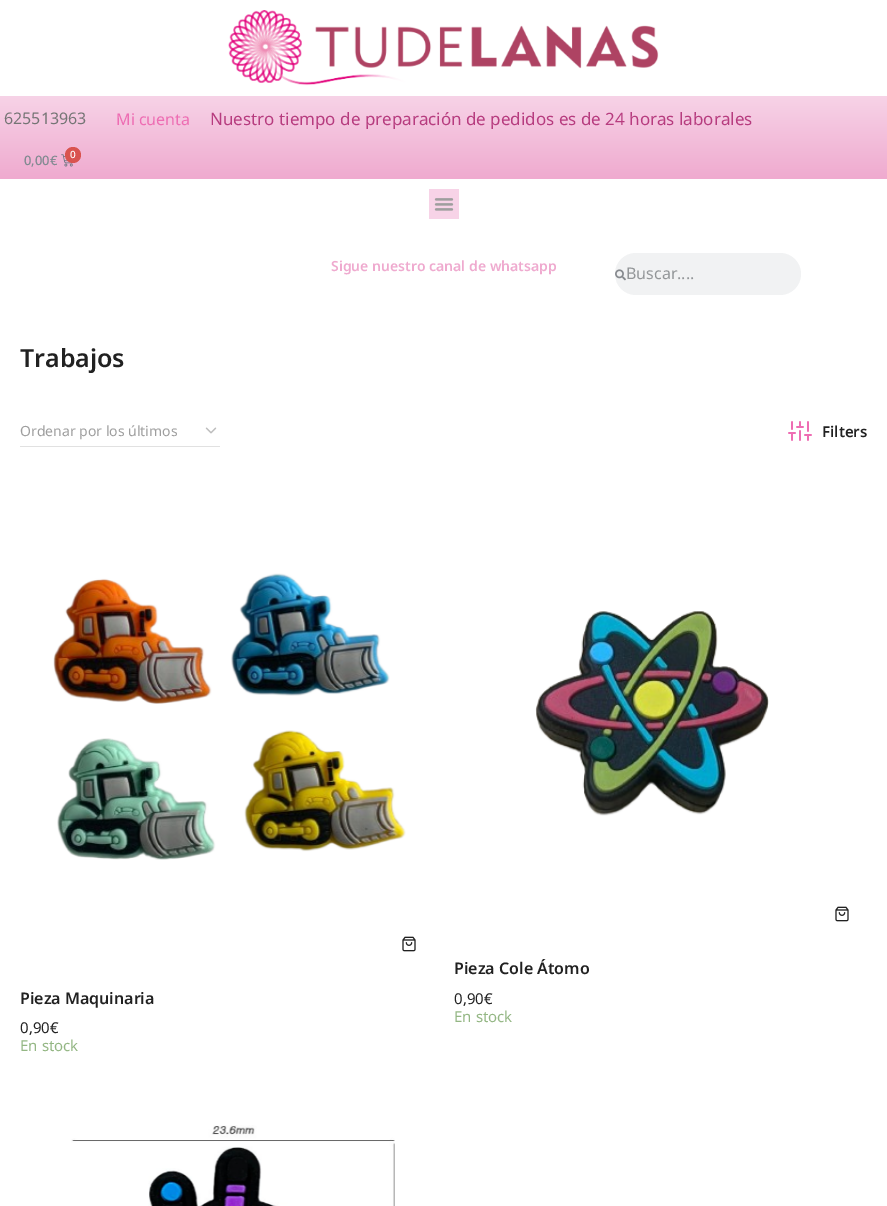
%!PS
<< /PageSize [887 1206] >> setpagedevice
/rgb { 3 { 255 div 3 1 roll } repeat setrgbcolor } def
/font { [ exch dup neg 0 0 3 -1 roll 0 0 ] selectfont } def
/text { moveto show } def
/circle { newpath 0 360 arc closepath } def
/roundrect { 5 dict begin { /r /h /w /y /x } { exch def } forall
  x r add y moveto x w add y 2 copy h add r arct x w add y h add x 1 index r arct
  x y h add x y r arct x y 2 copy exch w add exch r arct closepath end } def
/picture { 5 dict begin { /h /w /y /x /name } { exch def } forall
  gsave x y translate w h scale
  w h 8 [w 0 0 h 0 0] name (r) file false 3 colorimage grestore end } def
0 1206 translate 1 -1 scale
4 setmiterlimit
255 255 255 rgb
0 0 887 1206 rectfill
(img_01.rgb) 228 10 431 76 picture
gsave 0 96 moveto 887 0 rlineto 0 83 rlineto -887 0 rlineto closepath clip newpath
<< /ShadingType 2 /ColorSpace /DeviceRGB /Coords [444 96 444 179] /Extend [true true] /Function << /FunctionType 2 /Domain [0 1] /C0 [0.969 0.827 0.906] /C1 [0.937 0.667 0.812] /N 1 >> >> shfill grestore
(img_02.rgb) 61 154 12 13 picture
217 83 79 rgb
73 155 8 circle fill
247 211 231 rgb
429 189 30 30 rectfill
(img_03.rgb) 434 198 20 13 picture
241 242 243 rgb
615 253 186 42 21 roundrect fill
(img_04.rgb) 615 269 11 12 picture
225 225 225 rgb
20 446 200 1 rectfill
(img_05.rgb) 205 427 12 7 picture
(img_06.rgb) 788 421 24 20 picture
(img_07.rgb) 53 573 353 287 picture
(img_08.rgb) 402 936 14 16 picture
(img_09.rgb) 535 611 234 205 picture
(img_08.rgb) 835 906 14 16 picture
(img_10.rgb) 71 1125 324 81 picture
/NotoSans-Regular 16 font
117 117 117 rgb
(625513963) 4 124 text
238 109 179 rgb
(Mi cuenta) 116 125 text
/NotoSans-Regular 17 font
183 60 127 rgb
(Nuestro tiempo de preparación de pedidos es de 24 horas laborales) 210 125 text
/NotoSans-Medium 13 font
129 138 145 rgb
(0,00€) 24 165 text
/NotoSans-Medium 10 font
255 255 255 rgb
(0) 70 158 text
/NotoSans-SemiBold 14 font
239 170 207 rgb
(Sigue nuestro canal de whatsapp) 331 271 text
/NotoSans-Regular 16 font
147 150 152 rgb
(Buscar....) 626 279 text
/NotoSans-SemiBold 25 font
33 33 33 rgb
(Trabajos) 20 367 text
/NotoSans-Regular 14 font
158 158 158 rgb
(Ordenar por los últimos) 20 436 text
/NotoSans-SemiBold 15 font
33 33 33 rgb
(Filters) 822 437 text
/NotoSans-SemiBold 16 font
(Pieza Maquinaria) 20 1004 text
/NotoSans-Regular 15 font
(0,90€) 20 1033 text
148 183 132 rgb
(En stock) 20 1051 text
/NotoSans-SemiBold 16 font
33 33 33 rgb
(Pieza Cole Átomo) 454 974 text
/NotoSans-Regular 15 font
(0,90€) 454 1004 text
148 183 132 rgb
(En stock) 454 1022 text
showpage
